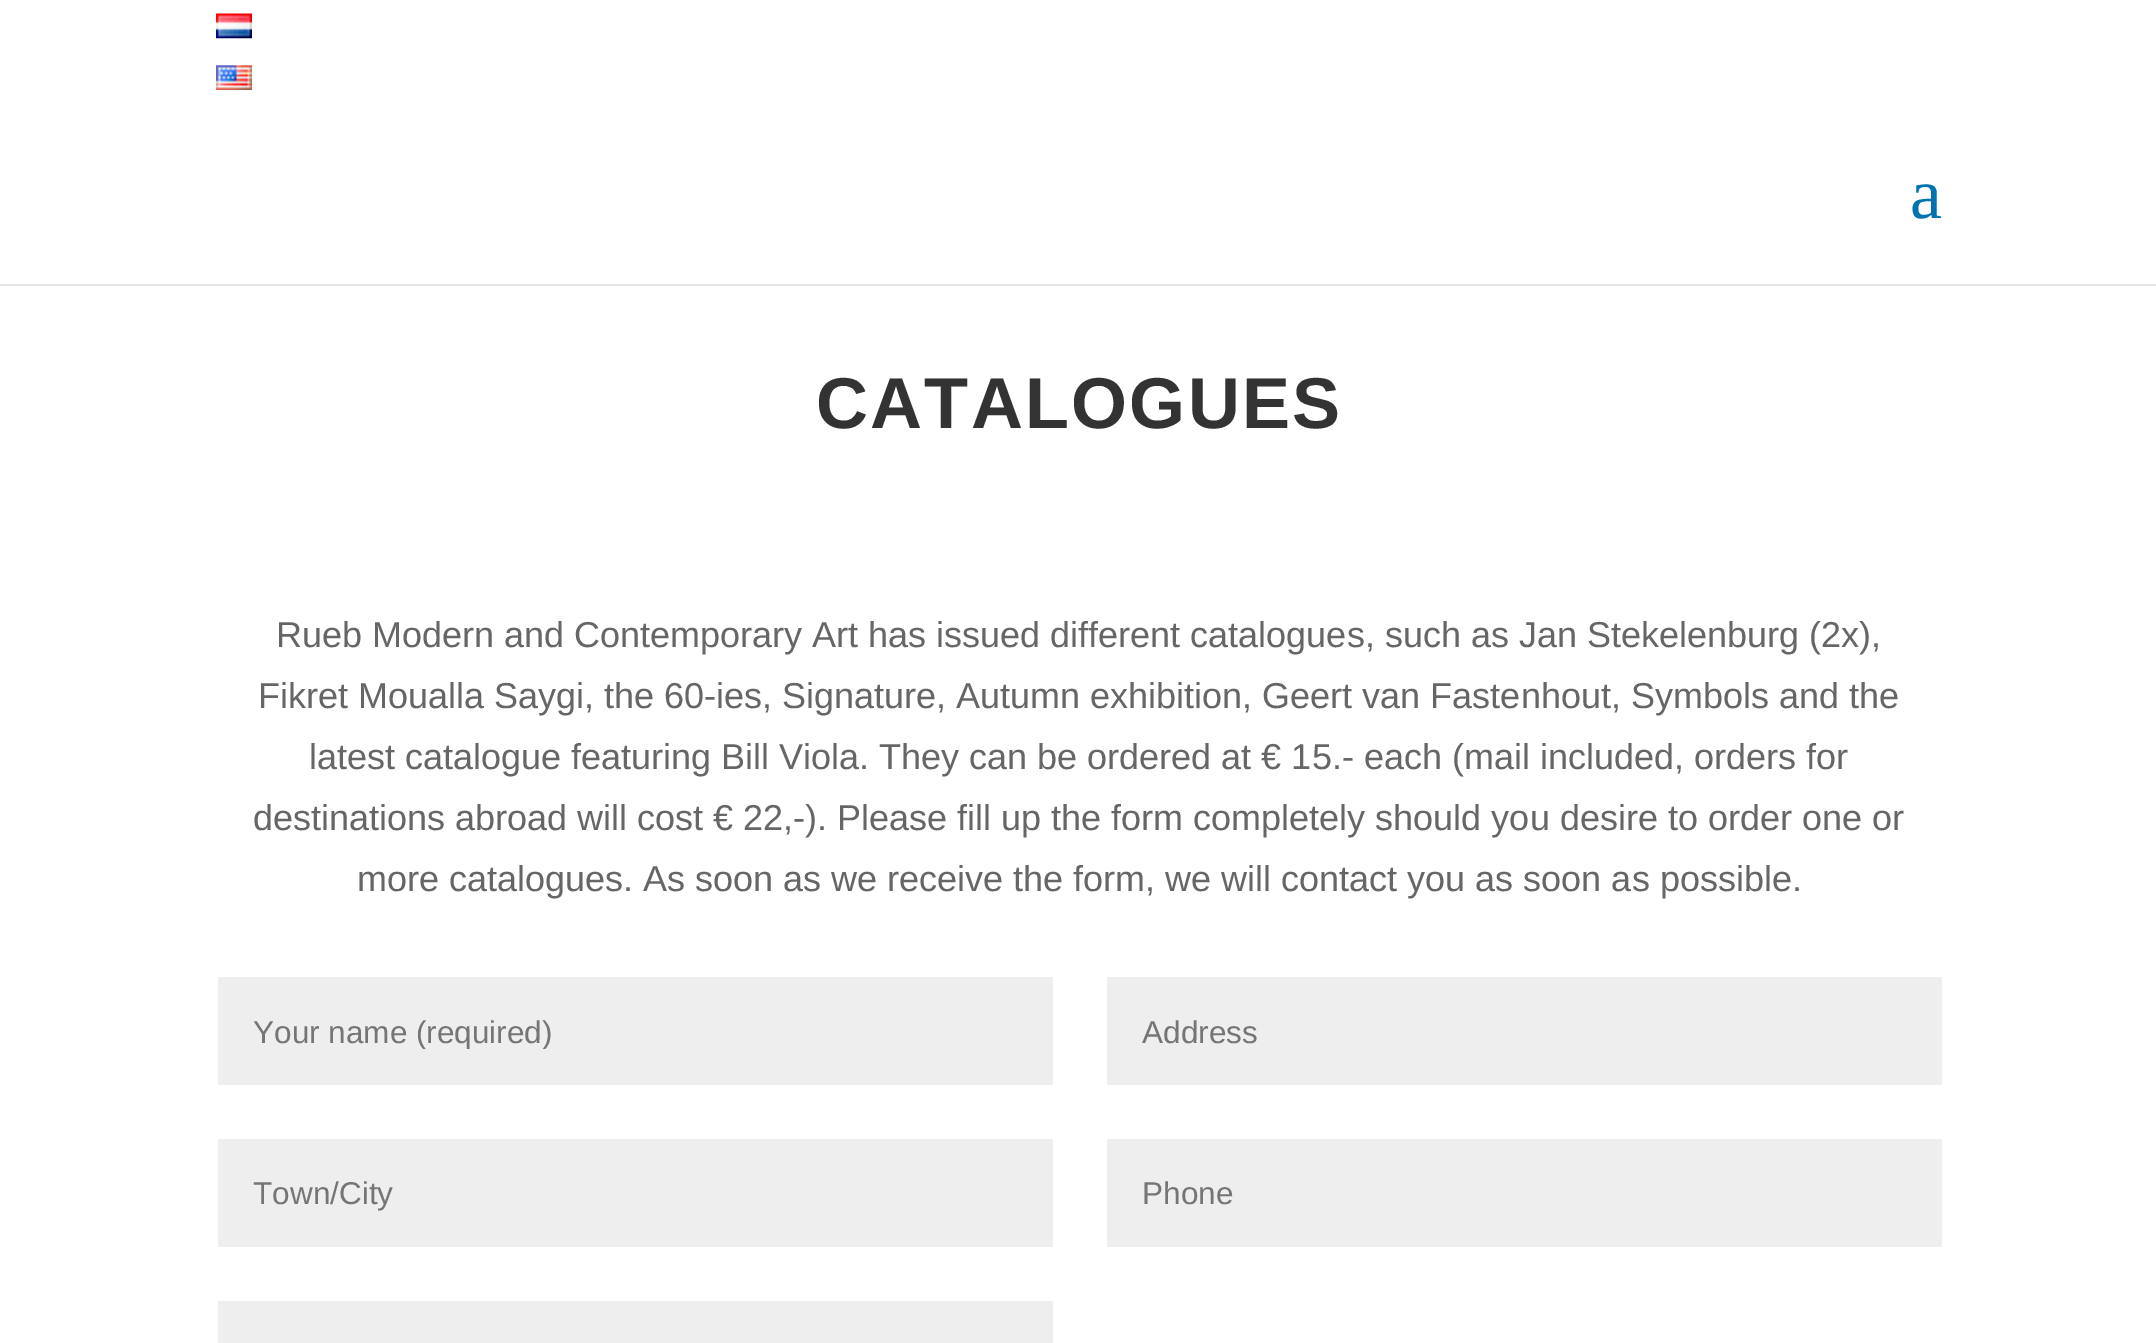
%!PS
<< /PageSize [2156 1343] >> setpagedevice
/rgb { 3 { 255 div 3 1 roll } repeat setrgbcolor } def
/font { [ exch dup neg 0 0 3 -1 roll 0 0 ] selectfont } def
/text { moveto show } def
/picture { 5 dict begin { /h /w /y /x /name } { exch def } forall
  gsave x y translate w h scale
  w h 8 [w 0 0 h 0 0] name (r) file false 3 colorimage grestore end } def
0 1343 translate 1 -1 scale
4 setmiterlimit
255 255 255 rgb
0 0 2156 1343 rectfill
230 230 230 rgb
0 284 moveto 0 2 rlineto 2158 0 rlineto 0 -284 rlineto 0 282 rlineto closepath fill
(img_01.rgb) 216 13 36 26 picture
(img_02.rgb) 216 65 36 25 picture
238 238 238 rgb
218 977 835 108 rectfill
1107 977 835 108 rectfill
218 1139 835 108 rectfill
1107 1139 835 108 rectfill
218 1301 835 42 rectfill
/LiberationSerif-Regular 72 font
0 114 174 rgb
(a) 1910 218 text
/LiberationSans-Bold 72 font
51 51 51 rgb
816 428 moveto 2.25 0 (CATALOGUES) ashow
/LiberationSans-Regular 36 font
102 102 102 rgb
(Rueb Modern and Contemporary Art has issued different catalogues, such as Jan Stekelenburg \(2x\),) 276 647 text
(Fikret Moualla Saygi, the 60-ies, Signature, Autumn exhibition, Geert van Fastenhout, Symbols and the) 258 708 text
(latest catalogue featuring Bill Viola. They can be ordered at € 15.- each \(mail included, orders for) 309 769 text
(destinations abroad will cost € 22,-\). Please fill up the form completely should you desire to order one or) 253 830 text
(more catalogues. As soon as we receive the form, we will contact you as soon as possible.) 357 891 text
gsave
254 1013 763 36 rectclip
/LiberationSans-Regular 31.5 font
117 117 117 rgb
(Your name \(required\)) 253 1043 text
grestore
/LiberationSans-Regular 31.5 font
117 117 117 rgb
(Address) 1142 1043 text
(Town/City) 253 1204 text
(Phone) 1142 1204 text
showpage
